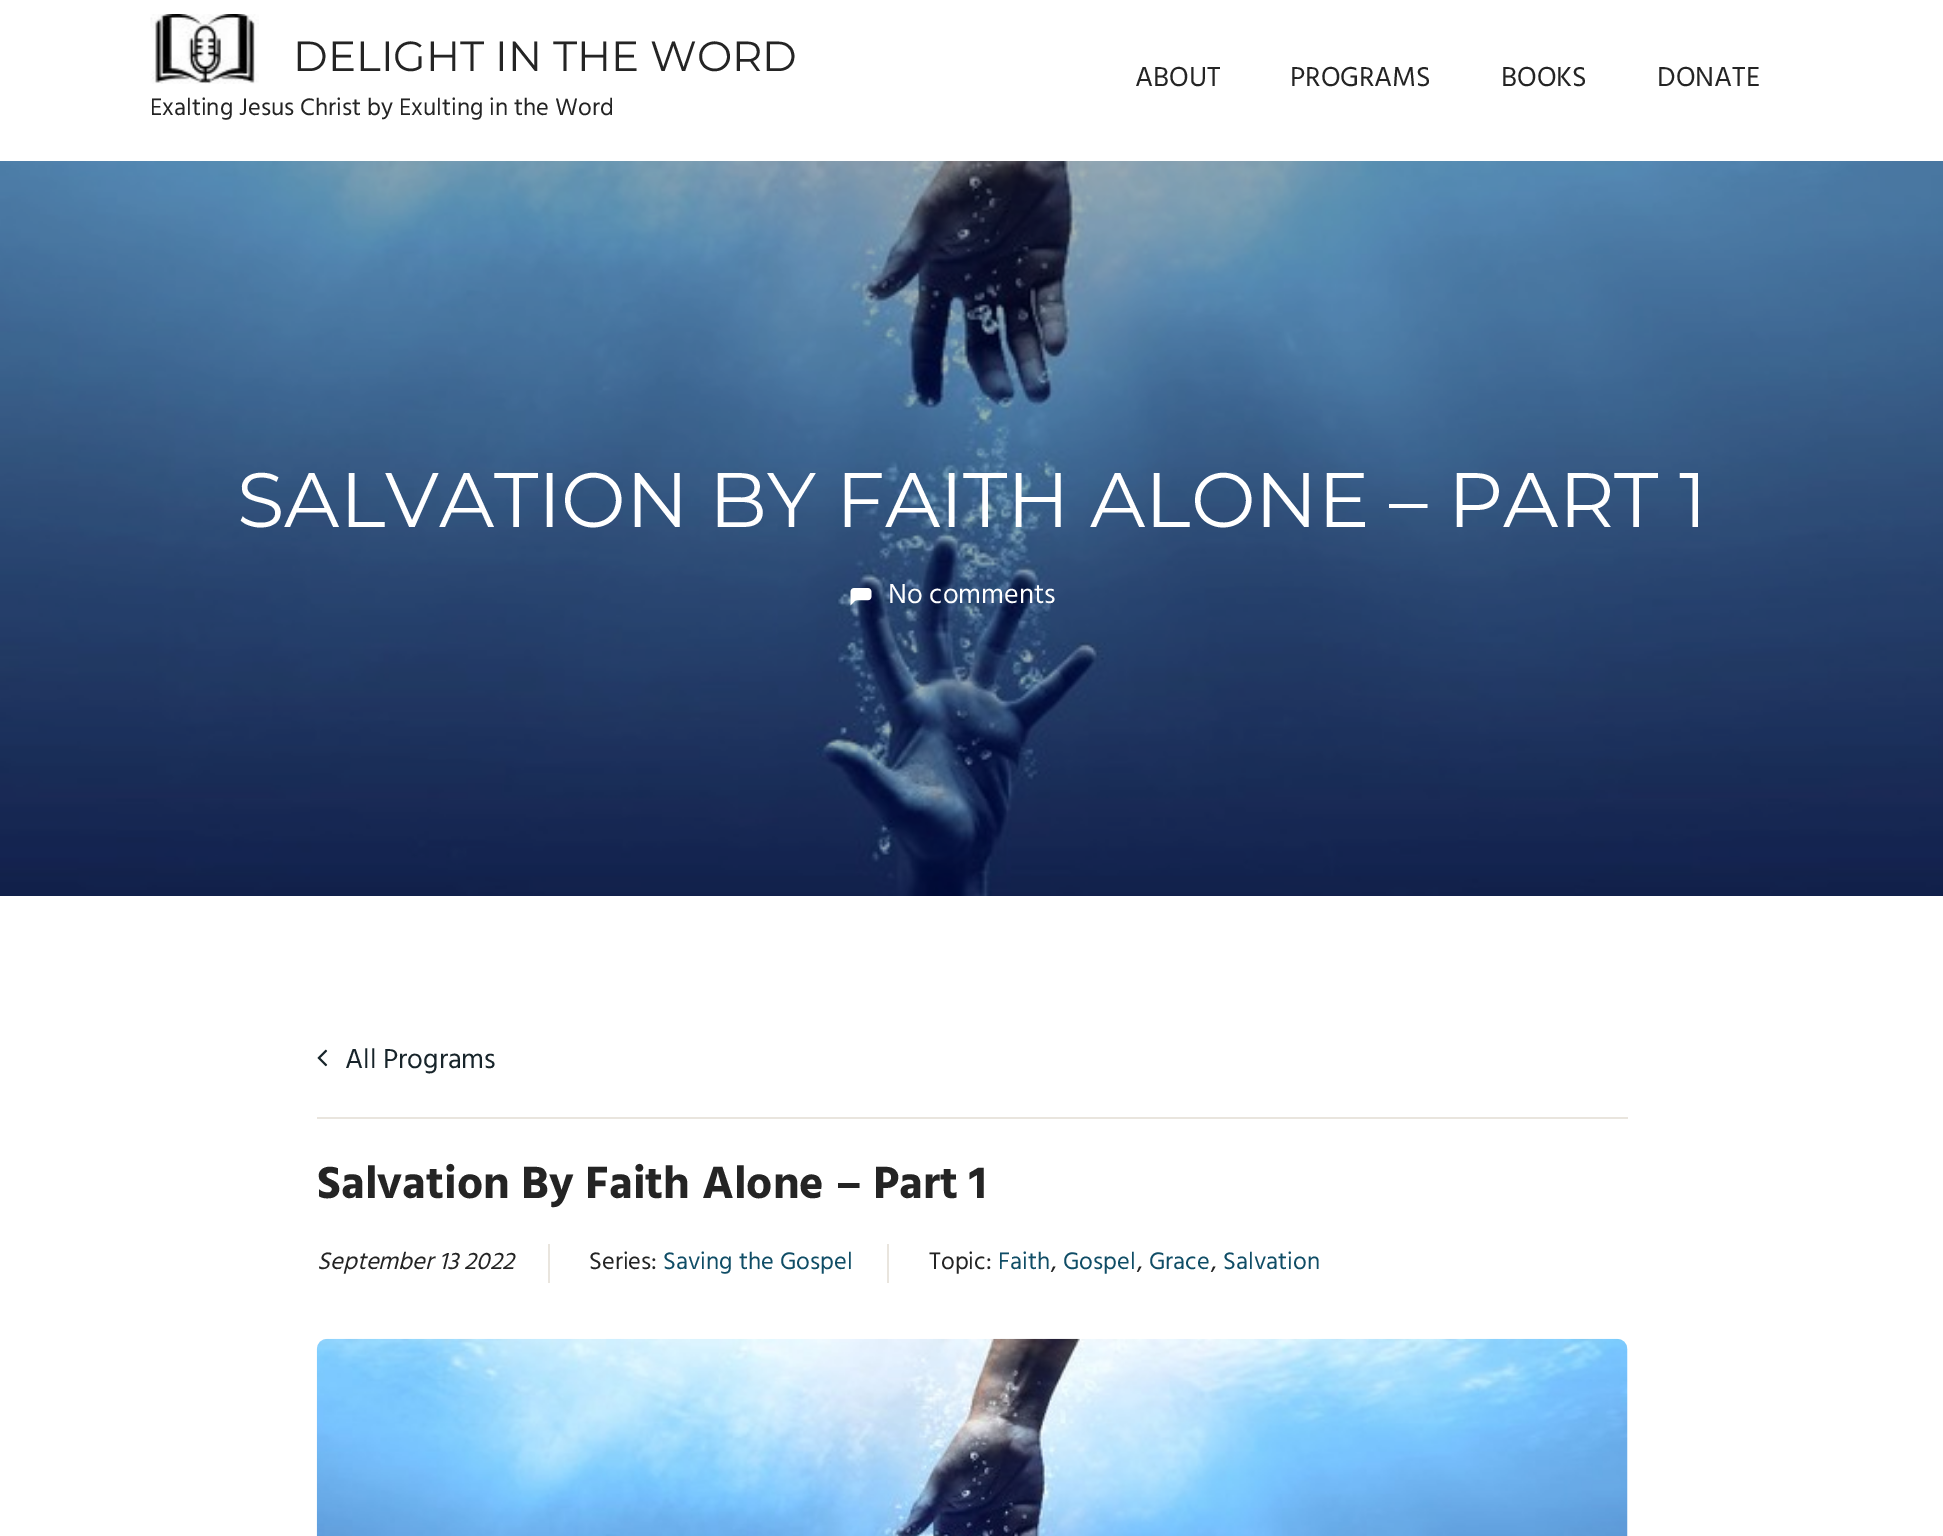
%!PS
<< /PageSize [1943 1536] >> setpagedevice
/rgb { 3 { 255 div 3 1 roll } repeat setrgbcolor } def
/font { [ exch dup neg 0 0 3 -1 roll 0 0 ] selectfont } def
/text { moveto show } def
/picture { 5 dict begin { /h /w /y /x /name } { exch def } forall
  gsave x y translate w h scale
  w h 8 [w 0 0 h 0 0] name (r) file false 3 colorimage grestore end } def
0 1536 translate 1 -1 scale
4 setmiterlimit
255 255 255 rgb
0 0 1943 1536 rectfill
(img_01.rgb) 150 14 109 70 picture
(img_02.rgb) 0 161 1943 735 picture
(img_03.rgb) 850 588 22 18 picture
233 229 222 rgb
317 1117 1311 2 rectfill
(img_04.rgb) 317 1049 11 18 picture
548 1244 2 39 rectfill
887 1244 2 39 rectfill
(img_05.rgb) 316 1338 1312 198 picture
/Montserrat-Regular 42 font
36 36 36 rgb
(DELIGHT IN THE WORD) 293 71 text
/Hind-Regular 24.5 font
(Exalting Jesus Christ by Exulting in the Word) 150 115 text
/Hind-Regular 28 font
(ABOUT) 1135 86 text
(PROGRAMS) 1290 86 text
(BOOKS) 1501 86 text
(DONATE) 1657 86 text
/Montserrat-Regular 77 font
255 255 255 rgb
(SALVATION BY FAITH ALONE – PART 1) 237 527 text
/Hind-Regular 28 font
(No comments) 888 603 text
23 36 42 rgb
(All Programs) 345 1068 text
/Hind-Bold 46.25 font
36 36 36 rgb
(Salvation By Faith Alone – Part 1) 317 1198 text
/Hind-Italic 24.5 font
(September 13 2022) 317 1269 text
/Hind-Regular 24.5 font
(Series:) 589 1269 text
15 77 102 rgb
(Saving the Gospel) 663 1269 text
36 36 36 rgb
(Topic:) 929 1269 text
15 77 102 rgb
(Faith) 998 1269 text
36 36 36 rgb
(,) 1051 1269 text
15 77 102 rgb
(Gospel) 1063 1269 text
36 36 36 rgb
(,) 1137 1269 text
15 77 102 rgb
(Grace) 1149 1269 text
36 36 36 rgb
(,) 1211 1269 text
15 77 102 rgb
(Salvation) 1223 1269 text
showpage
